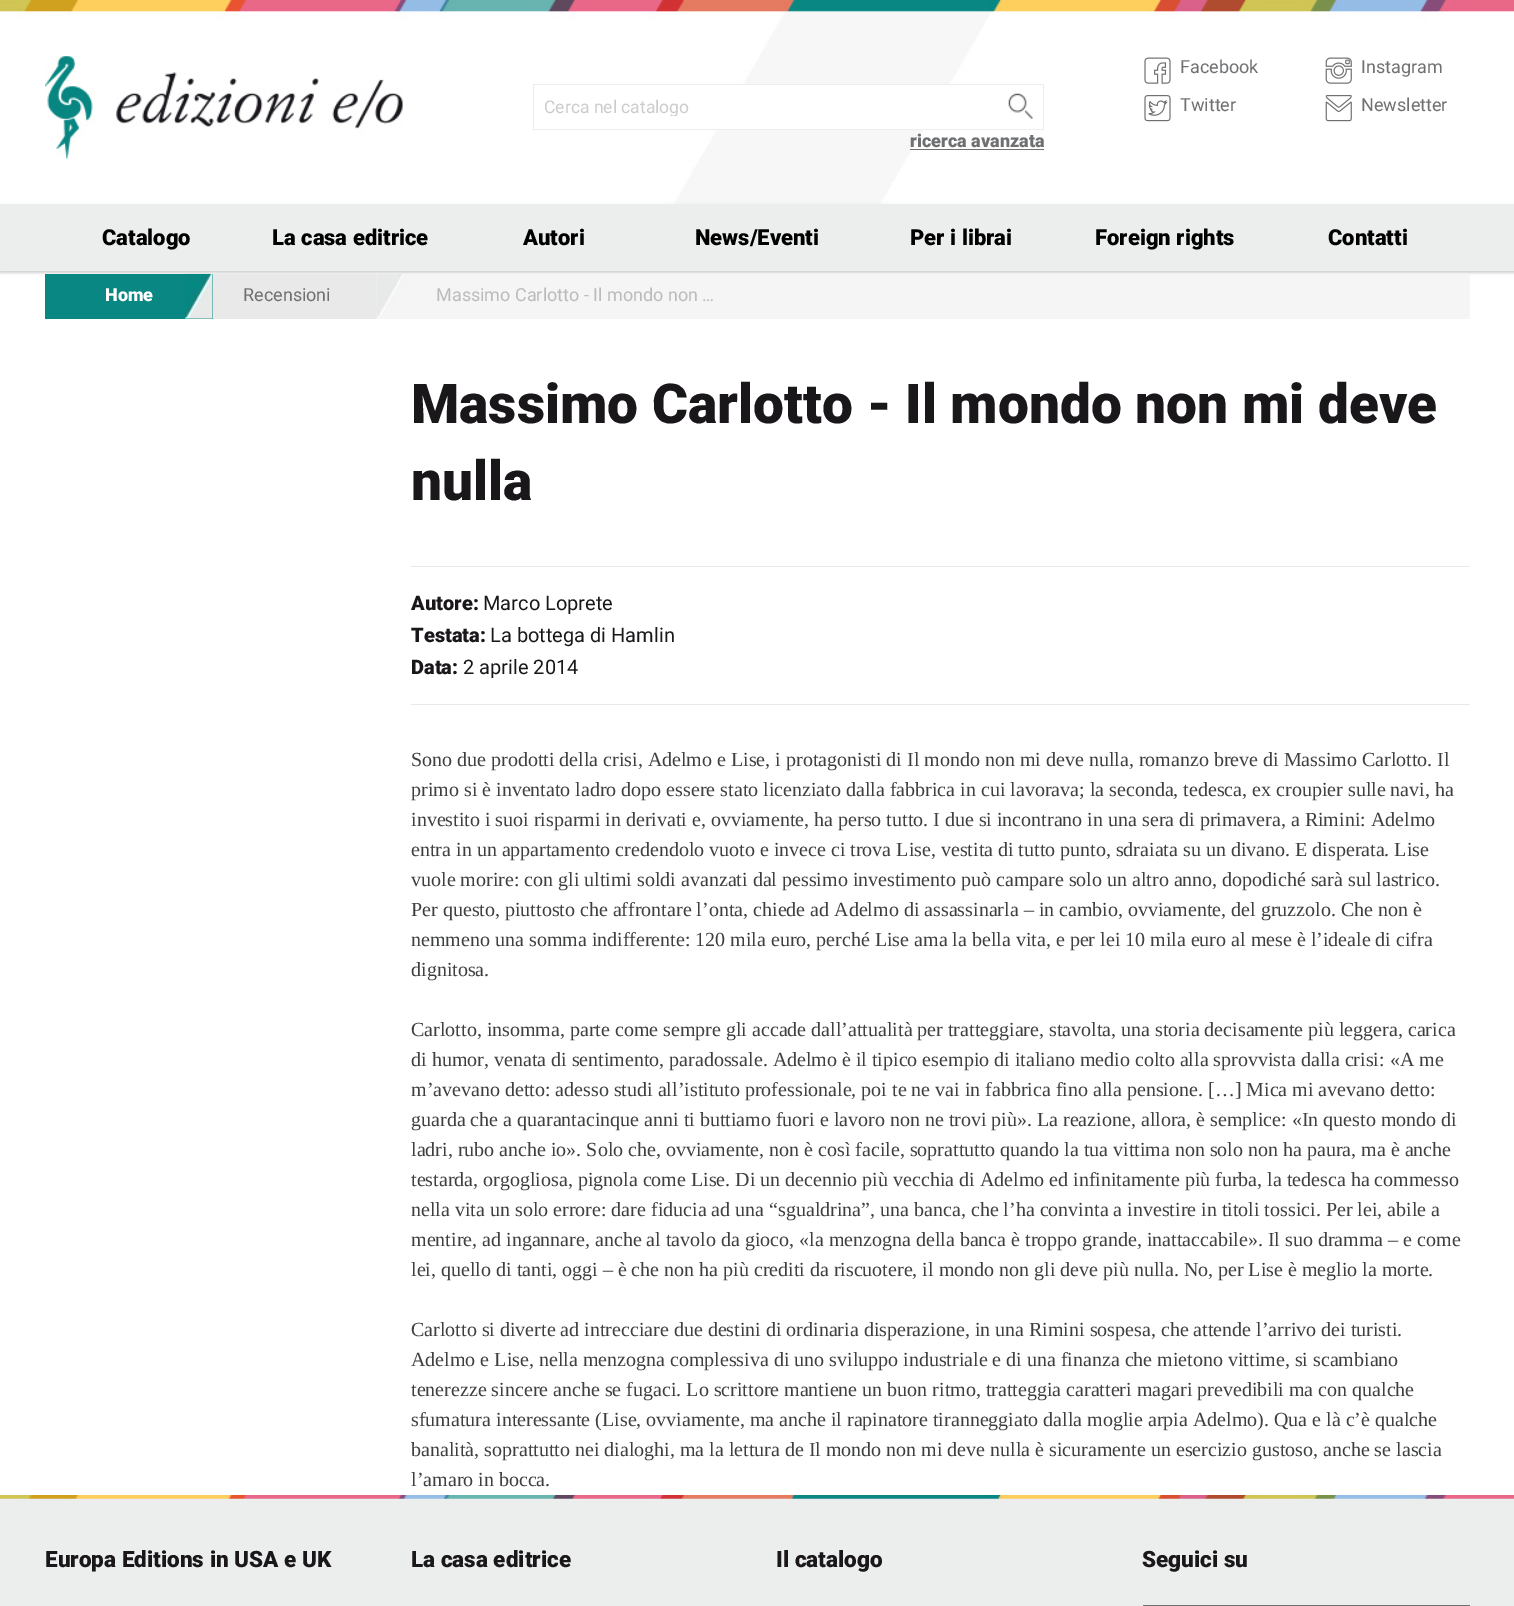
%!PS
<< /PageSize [1514 1606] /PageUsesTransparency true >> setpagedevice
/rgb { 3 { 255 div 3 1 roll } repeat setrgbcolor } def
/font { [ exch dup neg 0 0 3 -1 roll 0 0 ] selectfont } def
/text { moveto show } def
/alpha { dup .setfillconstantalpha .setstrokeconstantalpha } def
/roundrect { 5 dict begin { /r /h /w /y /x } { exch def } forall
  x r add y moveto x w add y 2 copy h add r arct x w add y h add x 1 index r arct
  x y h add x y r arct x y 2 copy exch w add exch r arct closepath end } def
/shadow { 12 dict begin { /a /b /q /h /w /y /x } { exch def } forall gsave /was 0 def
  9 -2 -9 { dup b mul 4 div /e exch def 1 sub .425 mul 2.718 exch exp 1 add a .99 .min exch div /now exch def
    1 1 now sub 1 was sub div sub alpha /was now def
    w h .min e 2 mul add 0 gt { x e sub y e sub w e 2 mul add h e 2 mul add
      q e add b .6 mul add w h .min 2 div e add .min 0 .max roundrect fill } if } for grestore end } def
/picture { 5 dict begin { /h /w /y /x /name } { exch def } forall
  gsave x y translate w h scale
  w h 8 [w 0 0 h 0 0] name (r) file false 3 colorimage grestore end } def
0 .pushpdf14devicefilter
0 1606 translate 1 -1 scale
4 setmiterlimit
255 255 255 rgb
0 0 1514 1606 rectfill
(img_01.rgb) 0 0 1514 204 picture
(img_02.rgb) 45 56 358 103 picture
(img_03.rgb) 1144 57 27 27 picture
(img_04.rgb) 1144 95 27 27 picture
(img_05.rgb) 1325 57 27 27 picture
(img_06.rgb) 1325 95 27 27 picture
717 85 232 44 rectfill
236 237 237 rgb
533 84 511 1 rectfill
533 129 426 1 rectfill
533 84 1 46 rectfill
(img_07.rgb) 1008 93 25 26 picture
1043 84 1 46 rectfill
959 129 85 1 rectfill
111 112 114 rgb
910 149 134 1 rectfill
0 0 0 rgb
0 205 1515 68 0 1 0.12 shadow
0 205 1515 68 0 2 0.06 shadow
236 237 237 rgb
0 204 1514 67 rectfill
245 245 245 rgb
376 274 1094 45 rectfill
9 135 130 rgb
45 274 168 45 rectfill
(img_08.rgb) 185 273 28 46 picture
233 233 233 rgb
213 274 163 45 rectfill
(img_09.rgb) 376 274 28 45 picture
411 566 1059 1 rectfill
411 704 1059 1 rectfill
236 237 237 rgb
0 1498 1514 108 rectfill
(img_10.rgb) 0 1495 1514 4 picture
111 112 114 rgb
1143 1605 327 1 rectfill
/Roboto-Regular 18 font
(Facebook) 1180 73 text
(Twitter) 1180 111 text
(Instagram) 1361 73 text
(Newsletter) 1361 111 text
gsave
544 96 405 20 rectclip
/Roboto-Regular 17.5 font
204 204 204 rgb
(Cerca nel catalogo) 544 113 text
grestore
/Roboto-Black 18 font
(ricerca avanzata) 910 147 text
/Roboto-Black 22 font
0 0 0 rgb
(Catalogo) 102 245 text
(La casa editrice) 272 245 text
(Autori) 523 245 text
(News/Eventi) 695 245 text
(Per i librai) 910 245 text
(Foreign rights) 1095 245 text
(Contatti) 1328 245 text
/Roboto-Black 18 font
255 255 255 rgb
(Home) 105 301 text
/Roboto-Regular 18 font
111 112 114 rgb
(Recensioni) 243 301 text
187 187 187 rgb
(Massimo Carlotto - Il mondo non …) 436 301 text
/Roboto-Black 55 font
26 23 27 rgb
(Massimo Carlotto - Il mondo non mi deve) 411 423 text
(nulla) 411 500 text
/Roboto-Black 20 font
(Autore:) 411 610 text
/Roboto-Regular 20 font
(Marco Loprete) 483 610 text
/Roboto-Black 20 font
(Testata:) 411 642 text
/Roboto-Regular 20 font
(La bottega di Hamlin) 490 642 text
/Roboto-Black 20 font
(Data:) 411 674 text
/Roboto-Regular 20 font
(2 aprile 2014) 463 674 text
/LiberationSerif-Regular 20 font
62 63 64 rgb
(Sono due prodotti della crisi, Adelmo e Lise, i protagonisti di Il mondo non mi deve nulla, romanzo breve di Massimo Carlotto. Il) 411 766 text
(primo si è inventato ladro dopo essere stato licenziato dalla fabbrica in cui lavorava; la seconda, tedesca, ex croupier sulle navi, ha) 411 796 text
(investito i suoi risparmi in derivati e, ovviamente, ha perso tutto. I due si incontrano in una sera di primavera, a Rimini: Adelmo) 411 826 text
(entra in un appartamento credendolo vuoto e invece ci trova Lise, vestita di tutto punto, sdraiata su un divano. E disperata. Lise) 411 856 text
(vuole morire: con gli ultimi soldi avanzati dal pessimo investimento può campare solo un altro anno, dopodiché sarà sul lastrico.) 411 886 text
(Per questo, piuttosto che affrontare l’onta, chiede ad Adelmo di assassinarla – in cambio, ovviamente, del gruzzolo. Che non è) 411 916 text
(nemmeno una somma indifferente: 120 mila euro, perché Lise ama la bella vita, e per lei 10 mila euro al mese è l’ideale di cifra) 411 946 text
(dignitosa.) 411 976 text
(Carlotto, insomma, parte come sempre gli accade dall’attualità per tratteggiare, stavolta, una storia decisamente più leggera, carica) 411 1036 text
(di humor, venata di sentimento, paradossale. Adelmo è il tipico esempio di italiano medio colto alla sprovvista dalla crisi: «A me) 411 1066 text
(m’avevano detto: adesso studi all’istituto professionale, poi te ne vai in fabbrica fino alla pensione. […] Mica mi avevano detto:) 411 1096 text
(guarda che a quarantacinque anni ti buttiamo fuori e lavoro non ne trovi più». La reazione, allora, è semplice: «In questo mondo di) 411 1126 text
(ladri, rubo anche io». Solo che, ovviamente, non è così facile, soprattutto quando la tua vittima non solo non ha paura, ma è anche) 411 1156 text
(testarda, orgogliosa, pignola come Lise. Di un decennio più vecchia di Adelmo ed infinitamente più furba, la tedesca ha commesso) 411 1186 text
(nella vita un solo errore: dare fiducia ad una “sgualdrina”, una banca, che l’ha convinta a investire in titoli tossici. Per lei, abile a) 411 1216 text
(mentire, ad ingannare, anche al tavolo da gioco, «la menzogna della banca è troppo grande, inattaccabile». Il suo dramma – e come) 411 1246 text
(lei, quello di tanti, oggi – è che non ha più crediti da riscuotere, il mondo non gli deve più nulla. No, per Lise è meglio la morte.) 411 1276 text
(Carlotto si diverte ad intrecciare due destini di ordinaria disperazione, in una Rimini sospesa, che attende l’arrivo dei turisti.) 411 1336 text
(Adelmo e Lise, nella menzogna complessiva di uno sviluppo industriale e di una finanza che mietono vittime, si scambiano) 411 1366 text
(tenerezze sincere anche se fugaci. Lo scrittore mantiene un buon ritmo, tratteggia caratteri magari prevedibili ma con qualche) 411 1396 text
(sfumatura interessante \(Lise, ovviamente, ma anche il rapinatore tiranneggiato dalla moglie arpia Adelmo\). Qua e là c’è qualche) 411 1426 text
(banalità, soprattutto nei dialoghi, ma la lettura de Il mondo non mi deve nulla è sicuramente un esercizio gustoso, anche se lascia) 411 1456 text
(l’amaro in bocca.) 411 1486 text
/Roboto-Black 22.5 font
26 23 27 rgb
(Europa Editions in USA e UK) 45 1567 text
(La casa editrice) 411 1567 text
(Il catalogo) 776 1567 text
(Seguici su) 1142 1567 text
.poppdf14devicefilter showpage
